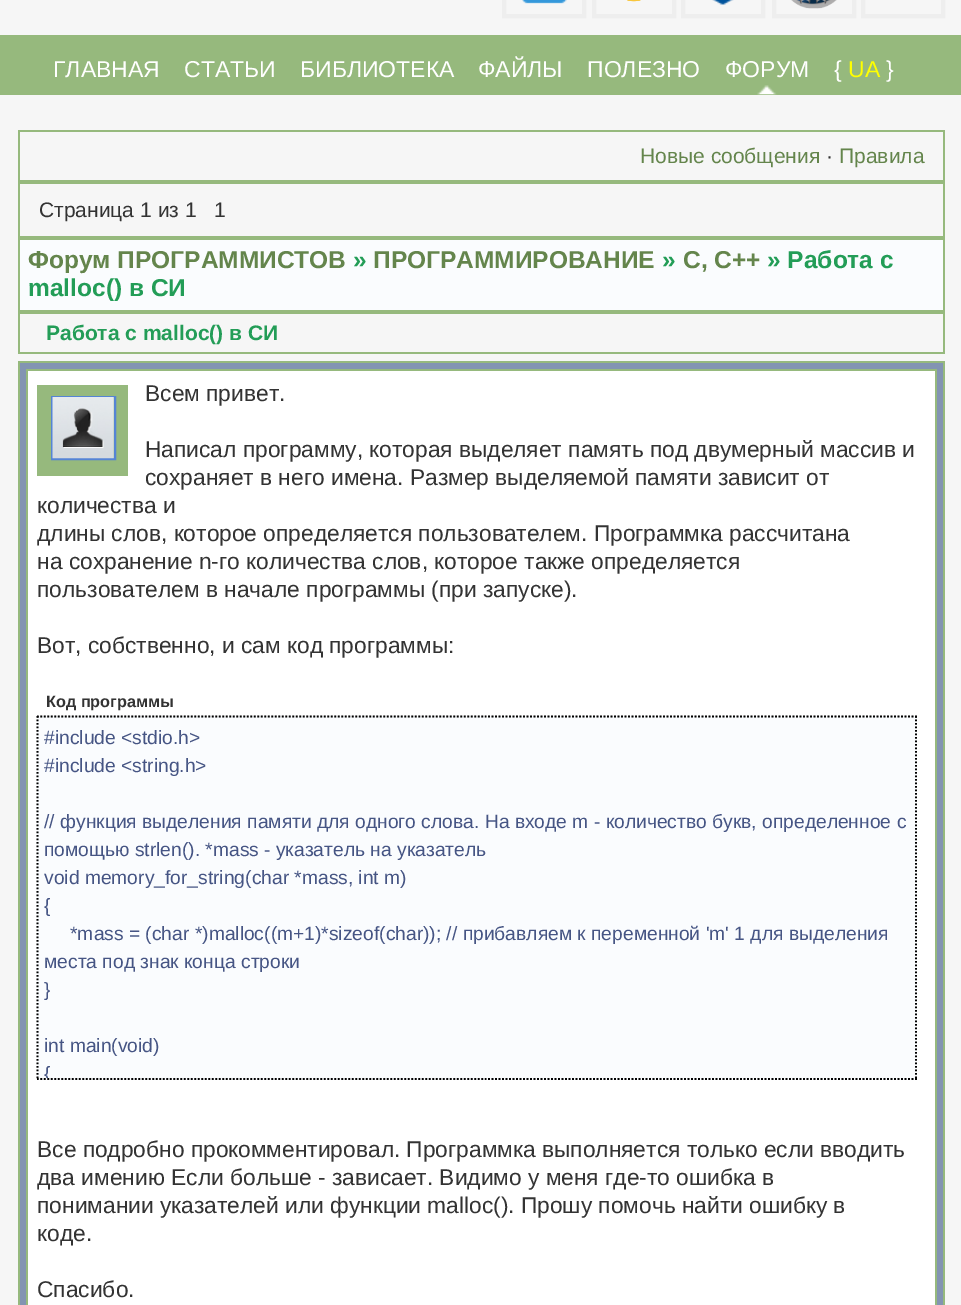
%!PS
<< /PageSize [961 1305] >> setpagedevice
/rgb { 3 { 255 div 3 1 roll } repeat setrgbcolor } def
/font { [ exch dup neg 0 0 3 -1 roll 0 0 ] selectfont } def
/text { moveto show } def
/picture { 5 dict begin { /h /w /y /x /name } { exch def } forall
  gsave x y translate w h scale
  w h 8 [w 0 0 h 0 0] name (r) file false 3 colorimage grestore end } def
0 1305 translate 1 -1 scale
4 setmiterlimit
246 246 246 rgb
0 0 961 1305 rectfill
238 238 238 rgb
4 setlinewidth
504 -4 80 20 rectstroke
594 -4 80 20 rectstroke
683 -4 80 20 rectstroke
774 -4 80 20 rectstroke
863 -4 80 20 rectstroke
(img_01.rgb) 522 0 45 4 picture
(img_02.rgb) 627 0 14 2 picture
(img_03.rgb) 712 0 22 5 picture
(img_04.rgb) 791 0 46 9 picture
150 185 125 rgb
0 35 961 60 rectfill
(img_05.rgb) 757 85 20 10 picture
18 130 927 2 rectfill
943 130 2 52 rectfill
18 180 927 4 rectfill
18 130 2 52 rectfill
943 182 2 56 rectfill
18 236 927 4 rectfill
18 182 2 56 rectfill
250 252 254 rgb
20 240 923 70 rectfill
150 185 125 rgb
943 238 2 74 rectfill
18 310 927 4 rectfill
18 238 2 74 rectfill
943 312 2 42 rectfill
18 352 927 2 rectfill
18 312 2 42 rectfill
131 148 178 rgb
20 363 923 942 rectfill
150 185 125 rgb
18 361 927 2 rectfill
943 361 2 944 rectfill
18 361 2 944 rectfill
255 255 255 rgb
28 371 907 934 rectfill
150 185 125 rgb
26 369 910 2 rectfill
935 369 2 936 rectfill
26 369 2 936 rectfill
250 252 254 rgb
37 716 880 364 rectfill
0 0 0 rgb
1.8 setlinewidth
[1.75 1.75] 0 setdash
37 716.5 moveto 880 0 rlineto stroke
916 716 moveto 0 364 rlineto stroke
37 1079 moveto 880 0 rlineto stroke
37.5 716 moveto 0 364 rlineto stroke
150 185 125 rgb
37 385 91 91 rectfill
85 132 213 rgb
2 setlinewidth
[] 0 setdash
52 397 63 62 rectstroke
(img_06.rgb) 52 397 62 62 picture
/LiberationSans-Regular 23 font
255 255 255 rgb
(ГЛАВНАЯ) 53 77 text
(СТАТЬИ) 184 77 text
(БИБЛИОТЕКА) 300 77 text
(ФАЙЛЫ) 478 77 text
(ПОЛЕЗНО) 587 77 text
(ФОРУМ) 725 77 text
({) 834 77 text
255 255 0 rgb
(UA) 848 77 text
255 255 255 rgb
(}) 886 77 text
/LiberationSans-Regular 21 font
100 133 76 rgb
(Новые сообщения) 640 163 text
51 51 51 rgb
(·) 826 163 text
100 133 76 rgb
(Правила) 839 163 text
51 51 51 rgb
(Страница 1 из 1) 39 217 text
(1) 214 217 text
/LiberationSans-Bold 24.5 font
100 133 76 rgb
(Форум ПРОГРАММИСТОВ) 28 268 text
35 157 87 rgb
(») 353 268 text
100 133 76 rgb
(ПРОГРАММИРОВАНИЕ) 373 268 text
35 157 87 rgb
(») 662 268 text
100 133 76 rgb
(С, C++) 683 268 text
35 157 87 rgb
(» Работа с) 767 268 text
(malloc\(\) в СИ) 28 296 text
/LiberationSans-Bold 21 font
(Работа с malloc\(\) в СИ) 46 340 text
/LiberationSans-Regular 22.75 font
51 51 51 rgb
(Всем привет.) 145 401 text
(Написал программу, которая выделяет память под двумерный массив и) 145 457 text
(сохраняет в него имена. Размер выделяемой памяти зависит от) 145 485 text
(количества и) 37 513 text
(длины слов, которое определяется пользователем. Программка рассчитана) 37 541 text
(на сохранение n-го количества слов, которое также определяется) 37 569 text
(пользователем в начале программы \(при запуске\).) 37 597 text
(Вот, собственно, и сам код программы:) 37 653 text
/LiberationSans-Bold 16.25 font
(Код программы) 46 707 text
/LiberationSans-Regular 19.25 font
70 85 132 rgb
(#include <stdio.h>) 44 744 text
(#include <string.h>) 44 772 text
(// функция выделения памяти для одного слова. На входе m - количество букв, определенное с) 44 828 text
(помощью strlen\(\). *mass - указатель на указатель) 44 856 text
(void memory_for_string\(char *mass, int m\)) 44 884 text
({) 44 912 text
(*mass = \(char *\)malloc\(\(m+1\)*sizeof\(char\)\); // прибавляем к переменной 'm' 1 для выделения) 70 940 text
(места под знак конца строки) 44 968 text
(}) 44 996 text
(int main\(void\)) 44 1052 text
gsave
39 718 876 360 rectclip
({) 44 1080 text
grestore
/LiberationSans-Regular 22.75 font
51 51 51 rgb
(Все подробно прокомментировал. Программка выполняется только если вводить) 37 1157 text
(два имению Если больше - зависает. Видимо у меня где-то ошибка в) 37 1185 text
(понимании указателей или функции malloc\(\). Прошу помочь найти ошибку в) 37 1213 text
(коде.) 37 1241 text
(Спасибо.) 37 1297 text
showpage
